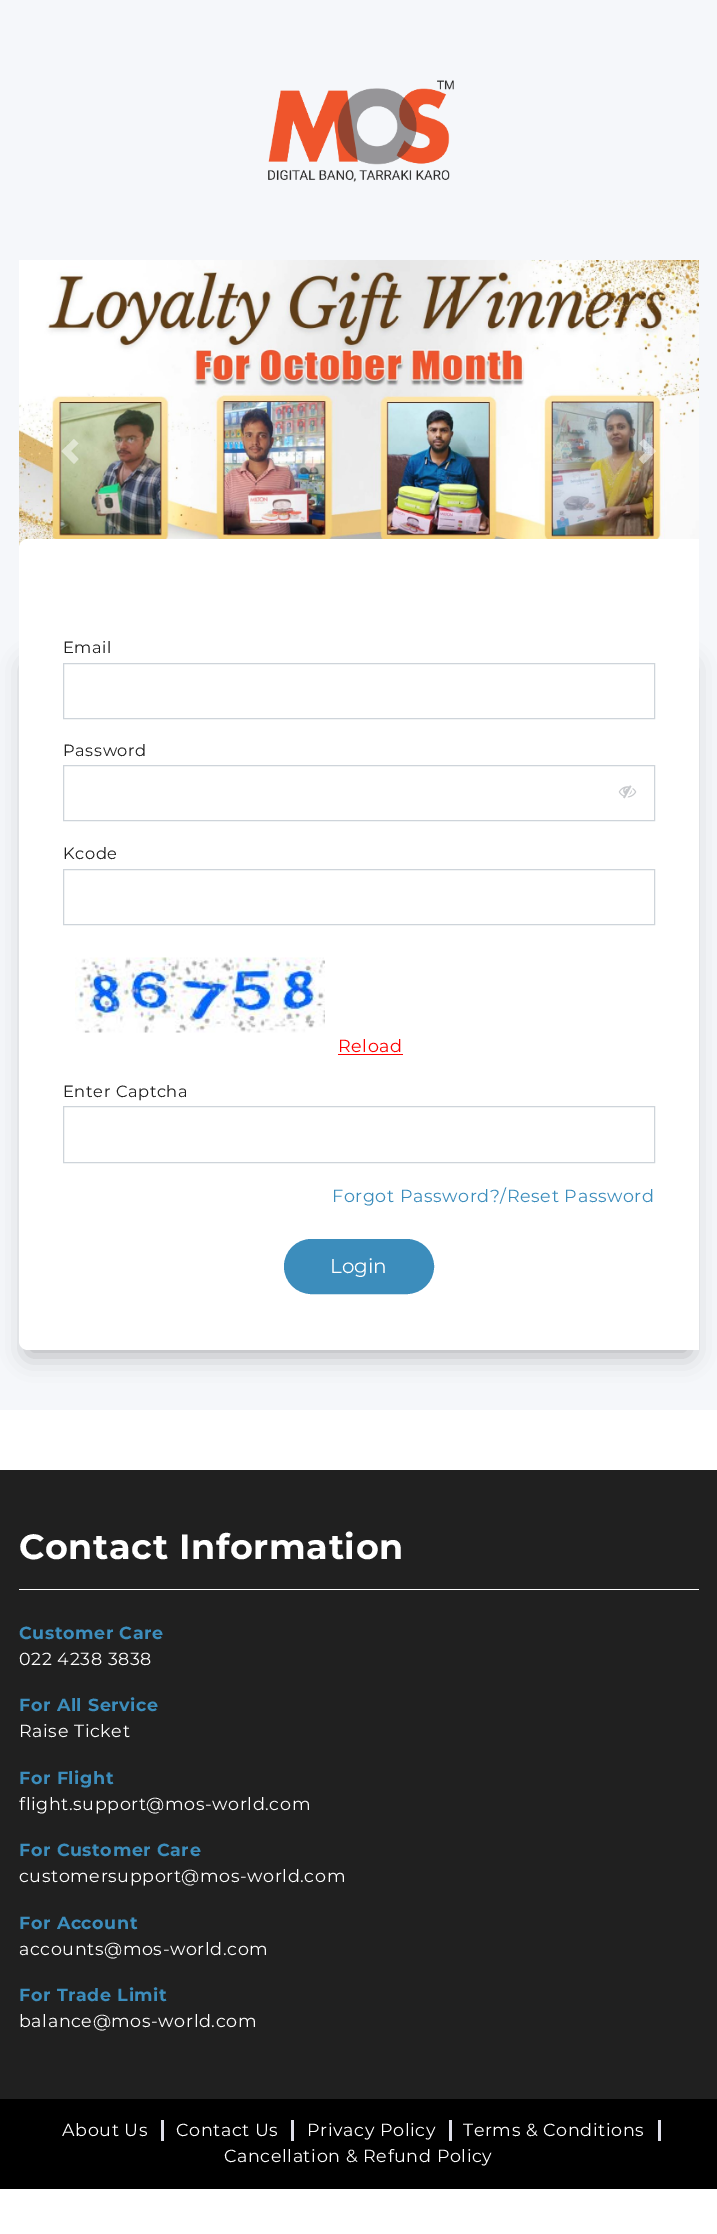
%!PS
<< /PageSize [717 2234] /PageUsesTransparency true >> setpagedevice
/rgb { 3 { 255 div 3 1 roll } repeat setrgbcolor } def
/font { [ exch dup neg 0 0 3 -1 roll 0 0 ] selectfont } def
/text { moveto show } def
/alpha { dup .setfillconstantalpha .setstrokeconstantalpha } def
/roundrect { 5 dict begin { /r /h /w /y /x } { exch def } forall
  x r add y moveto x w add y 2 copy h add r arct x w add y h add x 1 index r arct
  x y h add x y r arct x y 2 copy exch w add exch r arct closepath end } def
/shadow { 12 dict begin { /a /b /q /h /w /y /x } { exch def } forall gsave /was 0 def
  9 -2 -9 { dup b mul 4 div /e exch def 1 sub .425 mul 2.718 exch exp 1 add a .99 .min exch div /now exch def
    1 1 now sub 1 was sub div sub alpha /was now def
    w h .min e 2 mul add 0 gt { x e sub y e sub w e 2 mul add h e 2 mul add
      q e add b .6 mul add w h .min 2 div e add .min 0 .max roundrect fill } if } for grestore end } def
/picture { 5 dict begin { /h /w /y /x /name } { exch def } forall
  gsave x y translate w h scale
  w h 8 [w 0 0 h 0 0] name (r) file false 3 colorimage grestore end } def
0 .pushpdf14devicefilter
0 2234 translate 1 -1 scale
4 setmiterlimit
255 255 255 rgb
0 0 717 2234 rectfill
245 247 250 rgb
0 0 717 1410 rectfill
(img_01.rgb) 268 80 186 102 picture
(img_02.rgb) 19 260 680 288 picture
0.5 alpha
255 255 255 rgb
74 439 moveto -12.5 12 rlineto 12.5 13 rlineto 4.5 -5 rlineto -7.5 -8 rlineto 7.5 -7.5 rlineto closepath fill
643.5 439 moveto -4.5 4.5 rlineto 7.5 7.5 rlineto -7.5 8 rlineto 4.5 5 rlineto 12.5 -13 rlineto closepath fill
1 alpha
0 0 0 rgb
26 664 665 692 2.5 12 0.25 shadow
255 255 255 rgb
28 539 moveto 671 0 rlineto 0 811 rlineto -671 0 rlineto -5 0 -9 -4 -9 -9 rcurveto 0 -793 rlineto 0 -5 4 -9 9 -9 rcurveto closepath fill
206 212 218 rgb
63.5 663.5 591 55 rectstroke
63.5 765.5 591 55 rectstroke
(img_03.rgb) 618 785 19 14 picture
63.5 869.5 591 55 rectstroke
(img_04.rgb) 75 957 250 76 picture
255 0 0 rgb
338 1054 65 1 rectfill
206 212 218 rgb
63.5 1106.5 591 56 rectstroke
60 141 188 rgb
285.5 1240.5 147 52 26 roundrect gsave fill grestore
3 setlinewidth
stroke
32 32 32 rgb
0 1470 717 629 rectfill
255 255 255 rgb
19 1589 680 1 rectfill
0 0 0 rgb
0 2099 717 90 rectfill
223 223 234 rgb
161 2120 3 21 rectfill
291 2120 3 21 rectfill
449 2120 3 21 rectfill
658 2120 3 21 rectfill
/Montserrat-Regular 16.25 font
32 32 32 rgb
63 653 moveto 0.6 0 (Email) ashow
63 756 moveto 0.6 0 (Password) ashow
63 859 moveto 0.6 0 (Kcode) ashow
/Montserrat-Regular 17.5 font
255 0 0 rgb
338 1052 moveto 0.6 0 (Reload) ashow
/Montserrat-Regular 16.25 font
32 32 32 rgb
63 1097 moveto 0.6 0 (Enter Captcha) ashow
/Montserrat-Regular 17.5 font
60 141 188 rgb
332 1202 moveto 0.6 0 (Forgot Password?/Reset Password) ashow
/Montserrat-Regular 20 font
255 255 255 rgb
(Login) 330 1273 text
/Montserrat-Bold 35 font
19 1559 moveto 0.6 0 (Contact Information) ashow
/Montserrat-Bold 17.5 font
60 141 188 rgb
19 1639 moveto 0.6 0 (Customer Care) ashow
/Montserrat-Regular 17.5 font
255 255 255 rgb
19 1665 moveto 0.6 0 (022 4238 3838) ashow
/Montserrat-Bold 17.5 font
60 141 188 rgb
19 1711 moveto 0.6 0 (For All Service) ashow
/Montserrat-Regular 17.5 font
255 255 255 rgb
19 1737 moveto 0.6 0 (Raise Ticket) ashow
/Montserrat-Bold 17.5 font
60 141 188 rgb
19 1784 moveto 0.6 0 (For Flight) ashow
/Montserrat-Regular 17.5 font
255 255 255 rgb
19 1810 moveto 0.6 0 (flight.support@mos-world.com) ashow
/Montserrat-Bold 17.5 font
60 141 188 rgb
19 1856 moveto 0.6 0 (For Customer Care) ashow
/Montserrat-Regular 17.5 font
255 255 255 rgb
19 1882 moveto 0.6 0 (customersupport@mos-world.com) ashow
/Montserrat-Bold 17.5 font
60 141 188 rgb
19 1929 moveto 0.6 0 (For Account) ashow
/Montserrat-Regular 17.5 font
255 255 255 rgb
19 1955 moveto 0.6 0 (accounts@mos-world.com) ashow
/Montserrat-Bold 17.5 font
60 141 188 rgb
19 2001 moveto 0.6 0 (For Trade Limit) ashow
/Montserrat-Regular 17.5 font
255 255 255 rgb
19 2027 moveto 0.6 0 (balance@mos-world.com) ashow
62 2136 moveto 0.6 0 (About Us) ashow
176 2136 moveto 0.6 0 (Contact Us) ashow
307 2136 moveto 0.6 0 (Privacy Policy) ashow
463 2136 moveto 0.6 0 (Terms & Conditions) ashow
224 2162 moveto 0.6 0 (Cancellation & Refund Policy) ashow
.poppdf14devicefilter showpage
